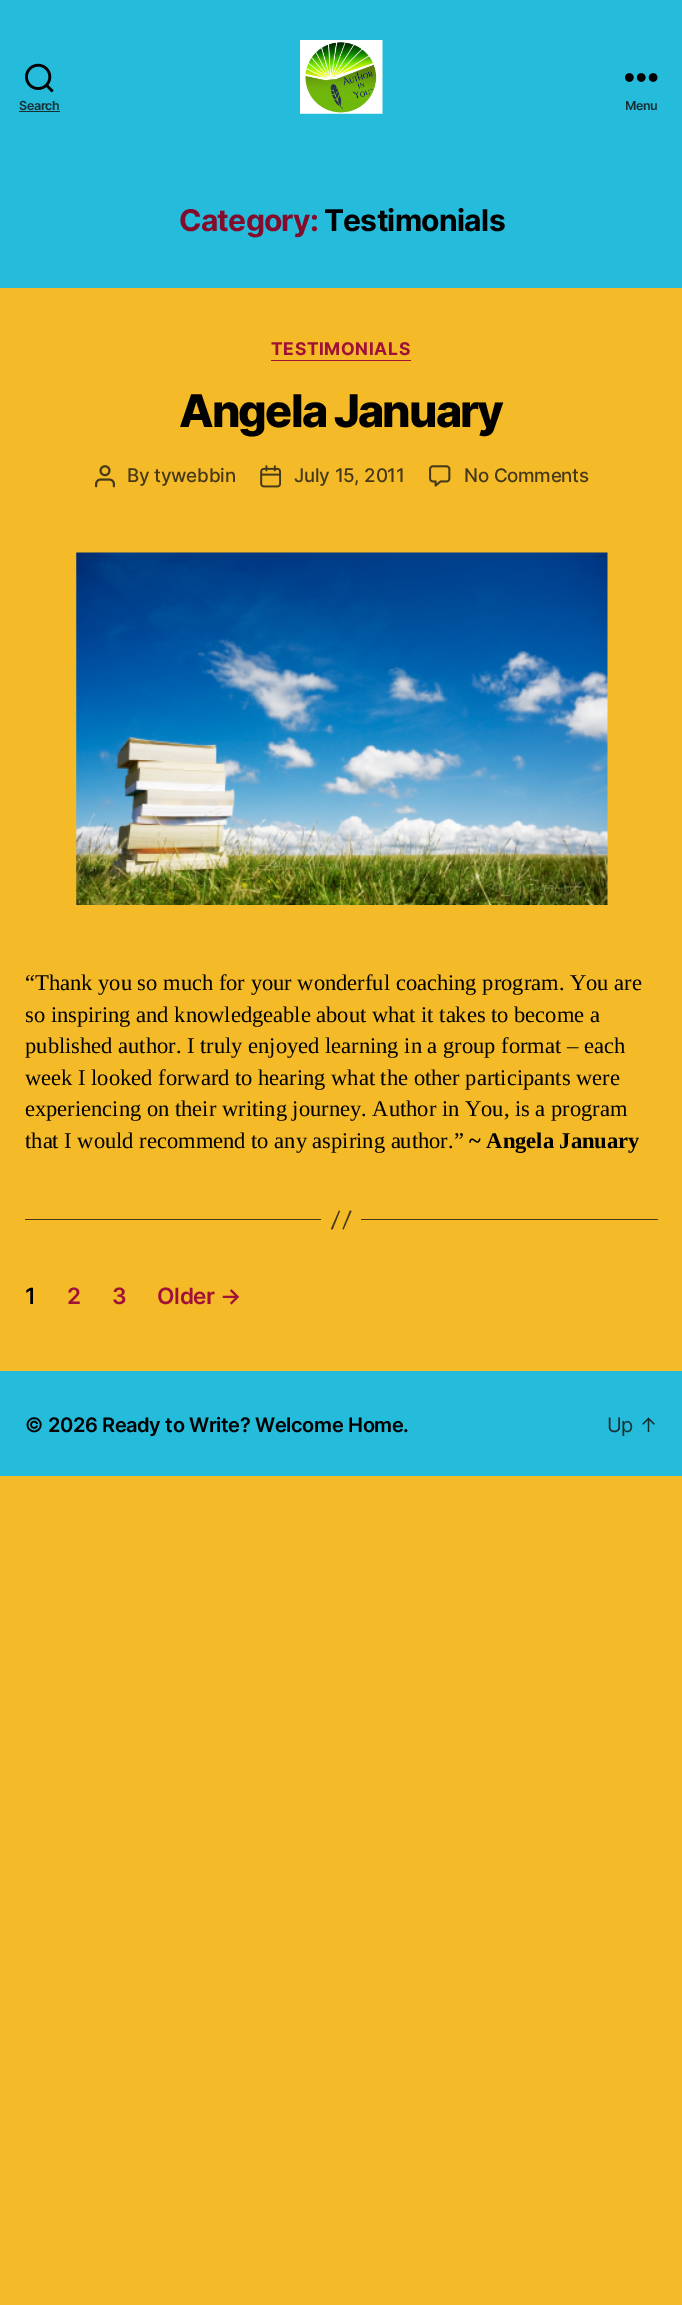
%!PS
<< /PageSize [682 2305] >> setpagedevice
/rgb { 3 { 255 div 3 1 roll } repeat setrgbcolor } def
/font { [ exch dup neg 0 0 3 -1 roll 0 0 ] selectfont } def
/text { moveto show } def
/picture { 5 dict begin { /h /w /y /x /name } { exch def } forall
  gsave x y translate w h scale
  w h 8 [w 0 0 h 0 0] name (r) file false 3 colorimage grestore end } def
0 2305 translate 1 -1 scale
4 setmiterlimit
244 186 39 rgb
0 0 682 2305 rectfill
37 188 219 rgb
0 0 682 288 rectfill
(img_01.rgb) 25 63 29 30 picture
24 47 52 rgb
19 111 41 1 rectfill
(img_02.rgb) 300 40 83 74 picture
(img_03.rgb) 625 73 33 9 picture
160 17 55 rgb
271 360 140 1 rectfill
(img_04.rgb) 95 465 20 23 picture
(img_05.rgb) 260 465 21 23 picture
(img_06.rgb) 429 465 22 22 picture
(img_07.rgb) 76 552 532 353 picture
70 57 26 rgb
361 1219 297 1 rectfill
25 1219 296 1 rectfill
339 1210.5 moveto 1 0.5 rlineto -7.5 18.5 rlineto -1.5 -0.5 rlineto closepath 350 1210.5 moveto 1.5 0.5 rlineto -8 18.5 rlineto -1 -0.5 rlineto closepath fill
37 188 219 rgb
0 1371 682 105 rectfill
/Inter-SemiBold 12.5 font
24 47 52 rgb
19 110 moveto -0.35 0 (Search) ashow
625 110 moveto -0.35 0 (Menu) ashow
/Inter-Bold 30 font
131 11 43 rgb
179 231 moveto -0.75 0 (Category:) ashow
0 0 0 rgb
324 231 moveto -0.75 0 (Testimonials) ashow
/Inter-Bold 17.5 font
160 17 55 rgb
271 355 moveto 0.6 0 (TESTIMONIALS) ashow
/Inter-ExtraBold 45 font
0 0 0 rgb
179 427 moveto -1.9 0 (Angela January) ashow
/Inter-Medium 18.75 font
70 57 26 rgb
127 482 moveto -0.25 0 (By tywebbin) ashow
294 482 moveto -0.25 0 (July 15, 2011) ashow
464 482 moveto -0.25 0 (No Comments) ashow
/LiberationSerif-Regular 22.5 font
0 0 0 rgb
(“Thank you so much for your wonderful coaching program. You are) 25 990 text
(so inspiring and knowledgeable about what it takes to become a) 25 1022 text
(published author. I truly enjoyed learning in a group format – each) 25 1053 text
(week I looked forward to hearing what the other participants were) 25 1085 text
(experiencing on their writing journey. Author in You, is a program) 25 1116 text
(that I would recommend to any aspiring author.”) 25 1148 text
/LiberationSerif-Bold 22.5 font
(~ Angela January) 469 1148 text
/Inter-SemiBold 22.5 font
25 1304 moveto -0.35 0 (1) ashow
160 17 55 rgb
67 1304 moveto -0.35 0 (2) ashow
112 1304 moveto -0.35 0 (3) ashow
157 1304 moveto -0.35 0 (Older →) ashow
/Inter-SemiBold 20 font
0 0 0 rgb
25 1432 moveto -0.35 0 (© 2026 Ready to Write? Welcome Home.) ashow
/Inter-Regular 20 font
24 47 52 rgb
607 1432 moveto -0.35 0 (Up ↑) ashow
showpage
